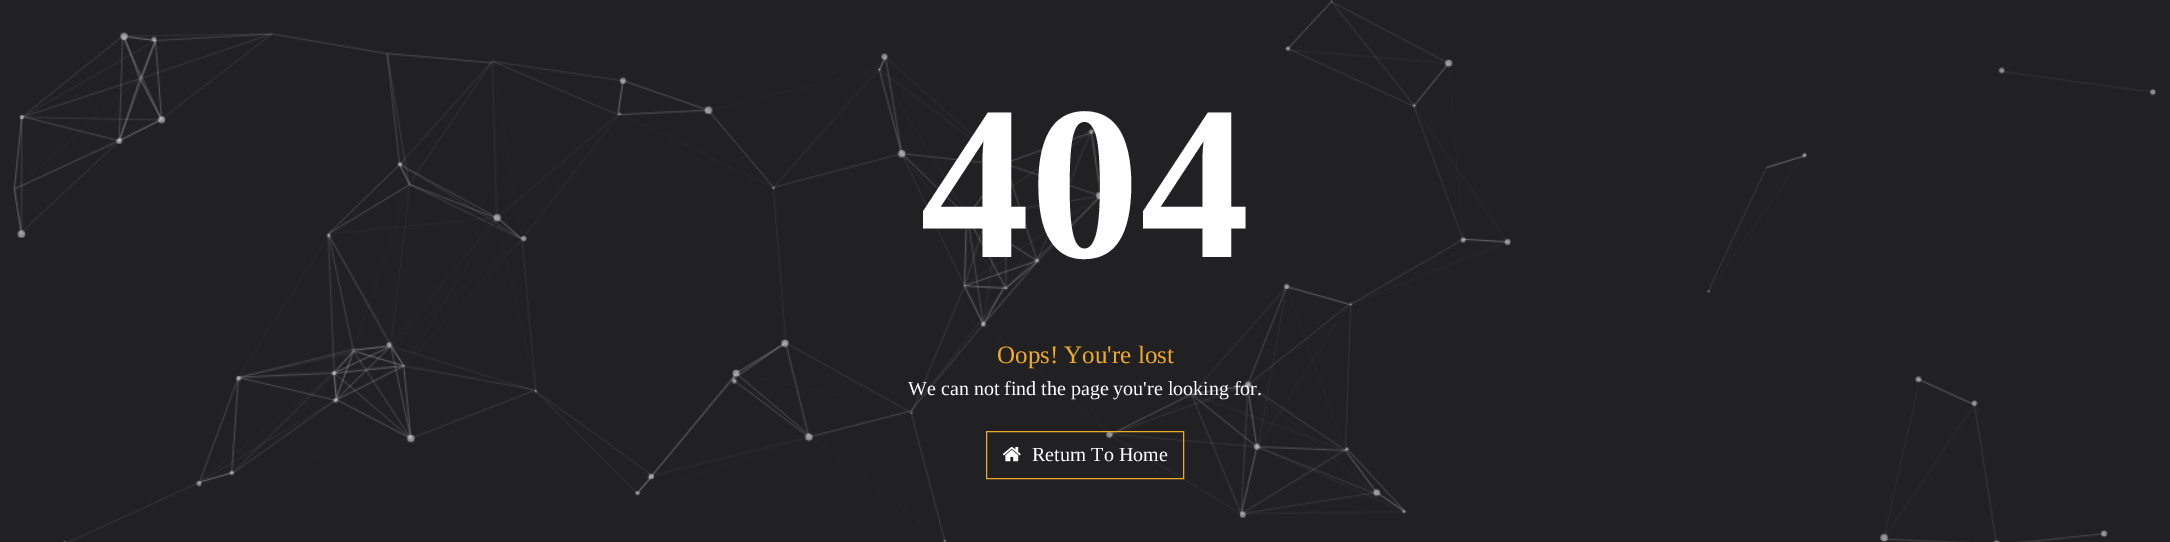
%!PS
<< /PageSize [2170 542] >> setpagedevice
/rgb { 3 { 255 div 3 1 roll } repeat setrgbcolor } def
/font { [ exch dup neg 0 0 3 -1 roll 0 0 ] selectfont } def
/text { moveto show } def
/picture { 5 dict begin { /h /w /y /x /name } { exch def } forall
  gsave x y translate w h scale
  w h 8 [w 0 0 h 0 0] name (r) file false 3 colorimage grestore end } def
0 542 translate 1 -1 scale
4 setmiterlimit
33 33 36 rgb
0 0 2170 542 rectfill
(img_01.rgb) 13 0 2144 542 picture
239 169 40 rgb
986.5 431.5 197 47 rectstroke
(img_02.rgb) 1002 446 19 16 picture
/LiberationSerif-Bold 220 font
255 255 255 rgb
(404) 920 257 text
/LiberationSerif-Regular 25 font
239 169 40 rgb
(Oops! You're lost) 997 363 text
/LiberationSerif-Regular 20 font
255 255 255 rgb
(We can not find the page you're looking for.) 908 395 text
(Return To Home) 1032 461 text
showpage
